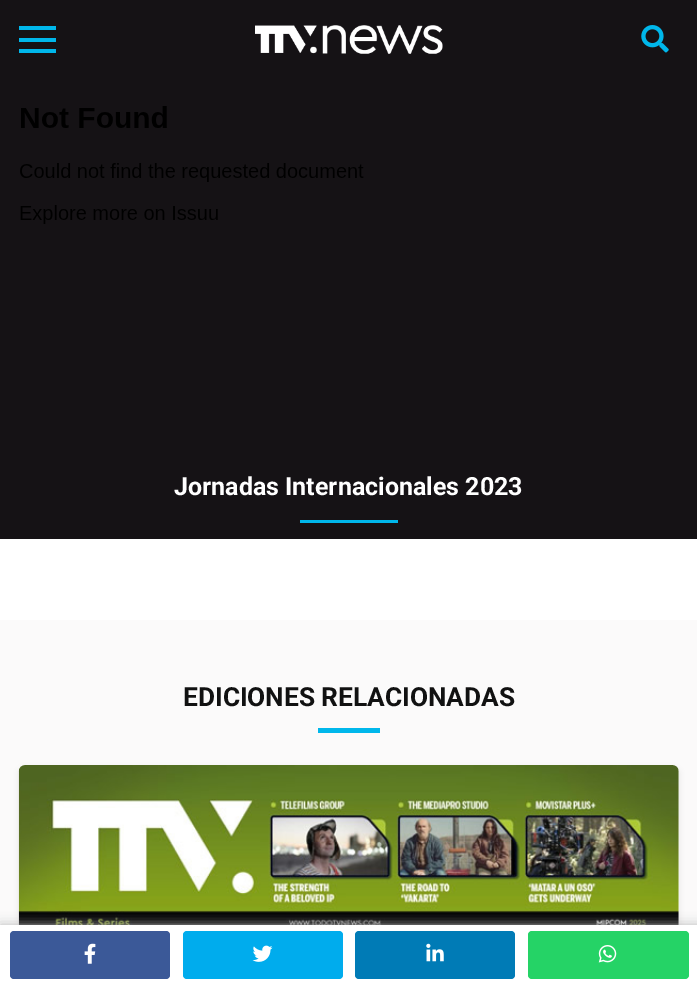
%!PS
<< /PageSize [697 985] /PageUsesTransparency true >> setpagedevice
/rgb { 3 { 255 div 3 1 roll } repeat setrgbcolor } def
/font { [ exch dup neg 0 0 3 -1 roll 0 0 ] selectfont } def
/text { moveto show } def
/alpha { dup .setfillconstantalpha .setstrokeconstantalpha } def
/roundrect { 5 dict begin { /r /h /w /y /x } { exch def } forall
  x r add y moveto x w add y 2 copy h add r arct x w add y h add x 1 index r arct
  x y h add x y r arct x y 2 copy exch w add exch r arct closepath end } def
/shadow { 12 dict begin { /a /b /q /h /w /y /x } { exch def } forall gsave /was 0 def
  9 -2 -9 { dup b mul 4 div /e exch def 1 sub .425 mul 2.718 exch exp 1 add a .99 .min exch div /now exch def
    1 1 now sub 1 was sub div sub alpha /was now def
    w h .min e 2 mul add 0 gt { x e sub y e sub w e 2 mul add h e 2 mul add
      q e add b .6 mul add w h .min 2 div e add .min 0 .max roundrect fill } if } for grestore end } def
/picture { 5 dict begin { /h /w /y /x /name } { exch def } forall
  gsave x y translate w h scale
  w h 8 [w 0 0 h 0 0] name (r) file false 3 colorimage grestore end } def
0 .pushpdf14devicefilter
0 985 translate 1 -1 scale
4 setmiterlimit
255 255 255 rgb
0 0 697 985 rectfill
21 18 21 rgb
0 0 697 539 rectfill
0 183 235 rgb
19 26 37 4 rectfill
19 38 37 4 rectfill
19 49 37 4 rectfill
(img_01.rgb) 255 25 188 29 picture
(img_02.rgb) 641 25 28 28 picture
(img_03.rgb) 20 106 344 118 picture
300 520 98 3 rectfill
251 250 250 rgb
0 620 697 305 rectfill
230 230 230 rgb
19 768 660 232 6 3 1 shadow
255 255 255 rgb
19 765 660 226 6 roundrect fill
(img_08.rgb) 18 765 661 160 picture
185 185 185 rgb
0 925 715 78 0 6 1 shadow
255 255 255 rgb
0 925 697 60 rectfill
59 89 152 rgb
10 931 160 48 4 roundrect fill
(img_04.rgb) 84 943 12 21 picture
0 172 237 rgb
183 931 160 48 4 roundrect fill
(img_05.rgb) 252 945 21 17 picture
0 123 182 rgb
355 931 160 48 4 roundrect fill
(img_06.rgb) 426 943 18 19 picture
37 211 102 rgb
528 931 161 48 4 roundrect fill
(img_07.rgb) 598 945 19 18 picture
0 183 235 rgb
318 728 62 5 rectfill
/Roboto-Bold 25 font
255 255 255 rgb
(Jornadas Internacionales 2023) 174 495 text
/Roboto-Bold 26.25 font
17 17 17 rgb
(EDICIONES RELACIONADAS) 183 706 text
.poppdf14devicefilter showpage
